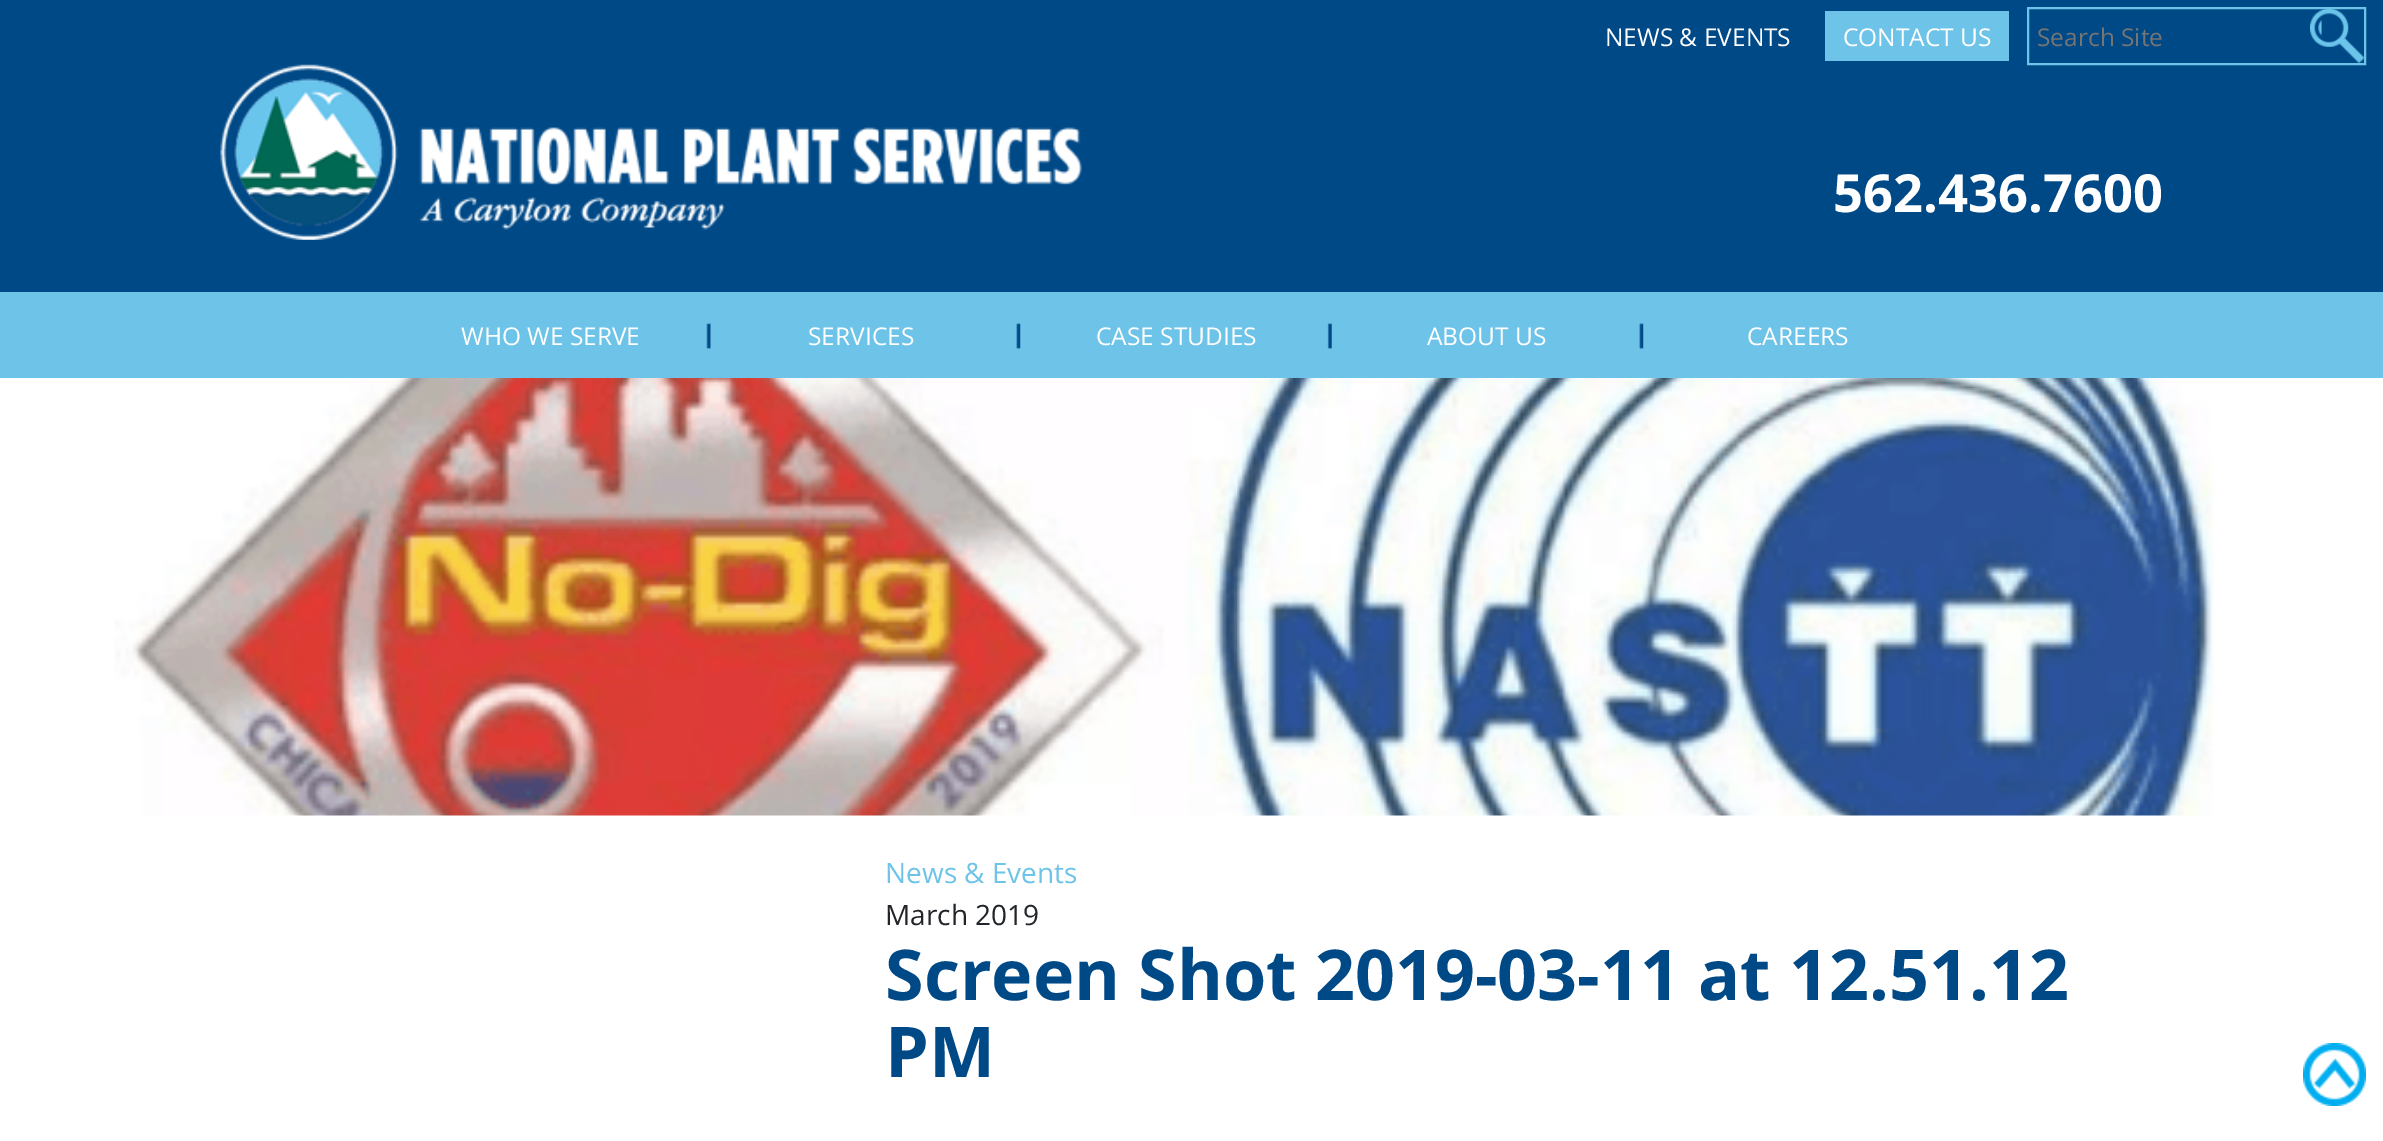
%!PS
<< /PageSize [2383 1141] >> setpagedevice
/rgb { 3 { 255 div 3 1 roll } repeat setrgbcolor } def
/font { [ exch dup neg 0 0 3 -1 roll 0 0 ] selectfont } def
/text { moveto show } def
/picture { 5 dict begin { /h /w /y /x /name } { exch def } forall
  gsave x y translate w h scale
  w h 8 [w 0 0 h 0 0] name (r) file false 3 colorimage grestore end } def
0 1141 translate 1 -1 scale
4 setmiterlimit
255 255 255 rgb
0 0 2383 1141 rectfill
0 73 135 rgb
0 0 2383 292 rectfill
110 196 232 rgb
1825 11 184 50 rectfill
(img_01.rgb) 2310 9 54 54 picture
2 setlinewidth
2028 8 337 56 rectstroke
(img_02.rgb) 220 64 862 176 picture
0 292 2383 86 rectfill
(img_03.rgb) 706 323 5 26 picture
(img_04.rgb) 1016 323 5 26 picture
(img_05.rgb) 1327 323 5 26 picture
(img_04.rgb) 1639 323 5 26 picture
(img_06.rgb) 114 378 2100 438 picture
(img_07.rgb) 2303 1043 63 63 picture
/OpenSans-Regular 24.5 font
255 255 255 rgb
(NEWS & EVENTS) 1605 46 text
(CONTACT US) 1843 46 text
117 117 117 rgb
(Search Site) 2037 46 text
/OpenSans-Bold 52.5 font
255 255 255 rgb
(562.436.7600) 1833 212 text
/OpenSans-Regular 24.5 font
(WHO WE SERVE) 461 345 text
(SERVICES) 808 345 text
(CASE STUDIES) 1096 345 text
(ABOUT US) 1427 345 text
(CAREERS) 1747 345 text
/OpenSans-Regular 28 font
110 196 232 rgb
(News & Events) 885 883 text
33 37 41 rgb
(March 2019) 885 925 text
/OpenSans-Bold 70 font
0 73 135 rgb
(Screen Shot 2019-03-11 at 12.51.12) 885 1000 text
(PM) 885 1077 text
showpage
